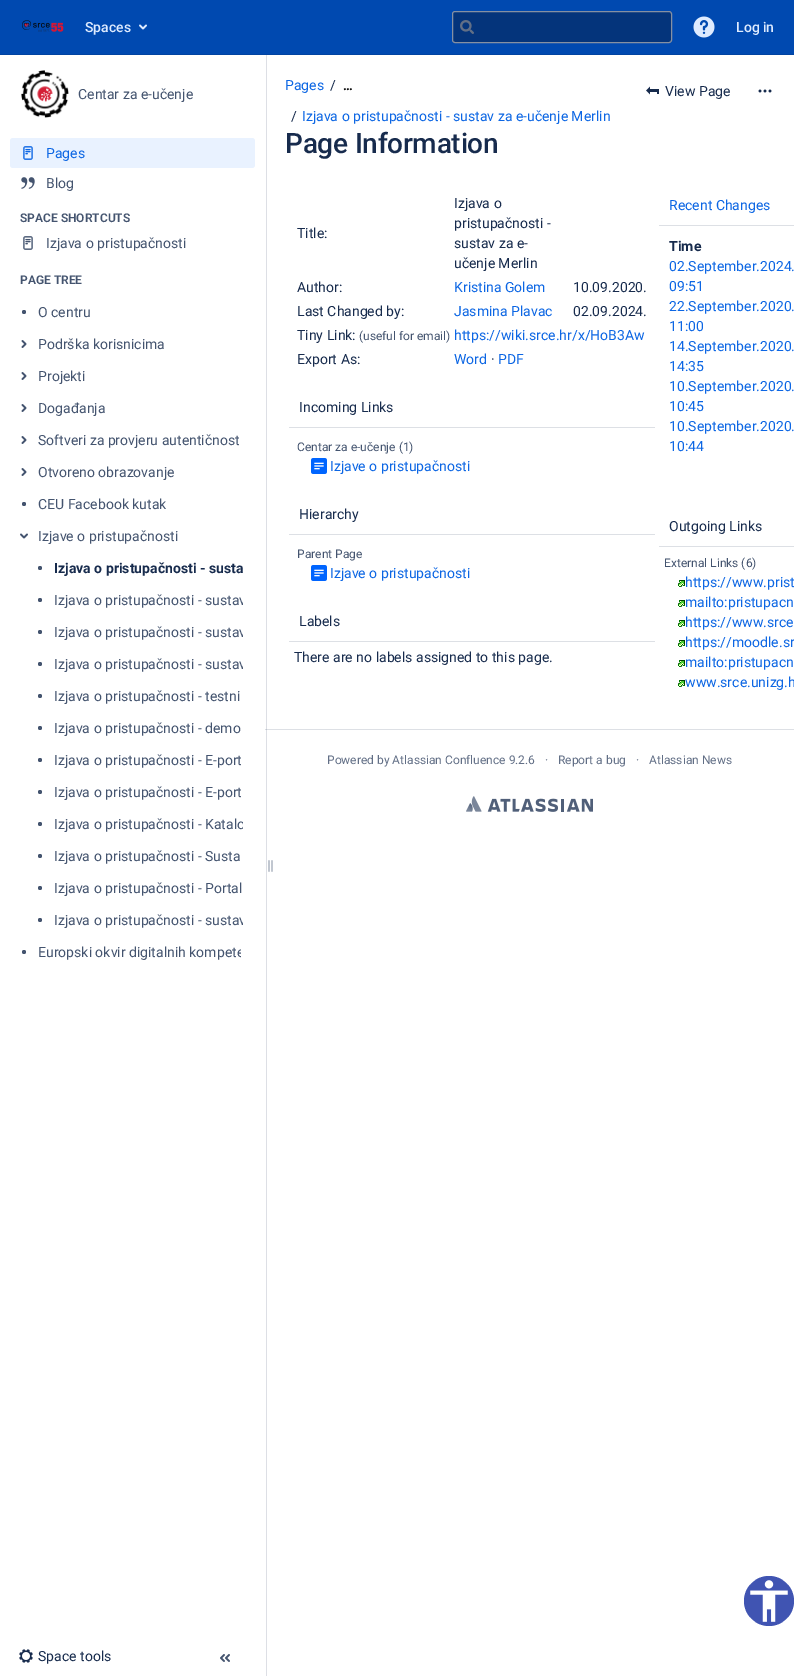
%!PS
<< /PageSize [794 1676] >> setpagedevice
/rgb { 3 { 255 div 3 1 roll } repeat setrgbcolor } def
/font { [ exch dup neg 0 0 3 -1 roll 0 0 ] selectfont } def
/text { moveto show } def
/circle { newpath 0 360 arc closepath } def
/roundrect { 5 dict begin { /r /h /w /y /x } { exch def } forall
  x r add y moveto x w add y 2 copy h add r arct x w add y h add x 1 index r arct
  x y h add x y r arct x y 2 copy exch w add exch r arct closepath end } def
/picture { 5 dict begin { /h /w /y /x /name } { exch def } forall
  gsave x y translate w h scale
  w h 8 [w 0 0 h 0 0] name (r) file false 3 colorimage grestore end } def
0 1676 translate 1 -1 scale
4 setmiterlimit
255 255 255 rgb
0 0 794 1676 rectfill
221 223 229 rgb
266 55 1 1621 rectfill
0 73 176 rgb
0 0 794 54 rectfill
1 67 161 rgb
0 54 794 1 rectfill
(img_01.rgb) 22 20 42 12 picture
(img_02.rgb) 139 24 8 6 picture
4 52 123 rgb
452.5 11.5 219 31 2.5 roundrect gsave fill grestore
133 144 162 rgb
stroke
(img_03.rgb) 460 20 14 14 picture
(img_04.rgb) 693 16 22 22 picture
(img_05.rgb) 21 70 48 48 picture
233 242 255 rgb
10 138 245 30 3 roundrect fill
(img_06.rgb) 23 146 10 14 picture
(img_07.rgb) 21 177 14 12 picture
(img_08.rgb) 23 236 10 14 picture
68 84 111 rgb
24 312 2 circle fill
(img_09.rgb) 21 340 6 8 picture
(img_09.rgb) 21 372 6 8 picture
(img_09.rgb) 21 404 6 8 picture
(img_09.rgb) 21 436 6 8 picture
(img_09.rgb) 21 468 6 8 picture
24 504 2 circle fill
(img_10.rgb) 20 533 8 6 picture
40 568 2 circle fill
40 600 2 circle fill
40 632 2 circle fill
40 664 2 circle fill
40 696 2 circle fill
40 728 2 circle fill
40 760 2 circle fill
40 792 2 circle fill
40 824 2 circle fill
40 856 2 circle fill
40 888 2 circle fill
40 920 2 circle fill
24 952 2 circle fill
(img_11.rgb) 268 860 5 12 picture
(img_12.rgb) 19 1649 14 14 picture
(img_13.rgb) 220 1654 10 8 picture
221 224 229 rgb
265 729 529 1 rectfill
191 197 206 rgb
266 729 1 1 rectfill
(img_14.rgb) 646 86 13 9 picture
(img_15.rgb) 758 89 14 4 picture
221 224 229 rgb
289 427 366 1 rectfill
(img_16.rgb) 311 458 16 16 picture
289 534 366 1 rectfill
(img_16.rgb) 311 565 16 16 picture
289 641 366 1 rectfill
659 225 135 1 rectfill
659 546 135 1 rectfill
(img_17.rgb) 678 580 7 7 picture
(img_17.rgb) 678 600 7 7 picture
(img_17.rgb) 678 620 7 7 picture
(img_17.rgb) 678 640 7 7 picture
(img_17.rgb) 678 660 7 7 picture
(img_17.rgb) 678 680 7 7 picture
(img_18.rgb) 466 796 127 16 picture
64 84 178 rgb
769 1601 25 circle fill
(img_19.rgb) 750 1580 38 42 picture
/Roboto-Medium 14 font
222 235 255 rgb
(Spaces) 85 32 text
(Log in) 736 32 text
/Roboto-Regular 14 font
68 84 111 rgb
(Centar za e-učenje) 78 99 text
12 102 228 rgb
(Pages) 46 158 text
68 84 111 rgb
(Blog) 46 188 text
/Roboto-SemiBold 12 font
(SPACE SHORTCUTS) 20 222 text
/Roboto-Regular 14 font
(Izjava o pristupačnosti) 46 248 text
/Roboto-SemiBold 12 font
(PAGE TREE) 20 284 text
/Roboto-Regular 14 font
(O centru) 38 317 text
(Podrška korisnicima) 38 349 text
(Projekti) 38 381 text
(Događanja) 38 413 text
(Softveri za provjeru autentičnost) 38 445 text
(Otvoreno obrazovanje) 38 477 text
(CEU Facebook kutak) 38 509 text
(Izjave o pristupačnosti) 38 541 text
/Roboto-Bold 14 font
23 43 77 rgb
(Izjava o pristupačnosti - susta) 54 573 text
gsave
52 588 191 24 rectclip
/Roboto-Regular 14 font
68 84 111 rgb
(Izjava o pristupačnosti - sustav) 54 605 text
grestore
gsave
52 620 191 24 rectclip
/Roboto-Regular 14 font
68 84 111 rgb
(Izjava o pristupačnosti - sustav) 54 637 text
grestore
gsave
52 652 191 24 rectclip
/Roboto-Regular 14 font
68 84 111 rgb
(Izjava o pristupačnosti - sustav) 54 669 text
grestore
/Roboto-Regular 14 font
68 84 111 rgb
(Izjava o pristupačnosti - testni) 54 701 text
(Izjava o pristupačnosti - demo) 54 733 text
(Izjava o pristupačnosti - E-port) 54 765 text
(Izjava o pristupačnosti - E-port) 54 797 text
gsave
52 812 191 24 rectclip
(Izjava o pristupačnosti - Katalo) 54 829 text
grestore
(Izjava o pristupačnosti - Susta) 54 861 text
(Izjava o pristupačnosti - Portal) 54 893 text
gsave
52 908 191 24 rectclip
(Izjava o pristupačnosti - sustav) 54 925 text
grestore
gsave
36 940 205 24 rectclip
(Europski okvir digitalnih kompete) 38 957 text
grestore
23 43 77 rgb
(Space tools) 38 1661 text
12 102 228 rgb
(Pages) 285 90 text
23 43 77 rgb
(/) 330 90 text
/Roboto-Bold 13 font
0 0 0 rgb
(…) 343 90 text
/Roboto-Regular 14 font
23 43 77 rgb
(/) 291 121 text
12 102 228 rgb
(Izjava o pristupačnosti - sustav za e-učenje Merlin) 302 121 text
/Roboto-Medium 28 font
23 43 77 rgb
285 153 moveto -0.25 0 (Page Information) ashow
/Roboto-Regular 14 font
(View Page) 665 96 text
(Title:) 297 238 text
(Izjava o) 454 208 text
(pristupačnosti -) 454 228 text
(sustav za e-) 454 248 text
(učenje Merlin) 454 268 text
(Author:) 297 292 text
12 102 228 rgb
(Kristina Golem) 454 292 text
23 43 77 rgb
(10.09.2020.) 573 292 text
(Last Changed by:) 297 316 text
12 102 228 rgb
(Jasmina Plavac) 454 316 text
23 43 77 rgb
(02.09.2024.) 573 316 text
(Tiny Link:) 297 340 text
/Roboto-Regular 12 font
68 84 111 rgb
(\(useful for email\)) 359 340 text
/Roboto-Regular 14 font
12 102 228 rgb
(https://wiki.srce.hr/x/HoB3Aw) 454 340 text
23 43 77 rgb
(Export As:) 297 364 text
12 102 228 rgb
(Word) 454 364 text
23 43 77 rgb
(·) 491 364 text
12 102 228 rgb
(PDF) 498 364 text
23 43 77 rgb
(Incoming Links) 299 412 text
/Roboto-Regular 12 font
68 84 111 rgb
(Centar za e-učenje \(1\)) 297 451 text
/Roboto-Regular 14 font
12 102 228 rgb
(Izjave o pristupačnosti) 330 471 text
23 43 77 rgb
(Hierarchy) 299 519 text
/Roboto-Regular 12 font
68 84 111 rgb
(Parent Page) 297 558 text
/Roboto-Regular 14 font
12 102 228 rgb
(Izjave o pristupačnosti) 330 578 text
23 43 77 rgb
(Labels) 299 626 text
(There are no labels assigned to this page.) 294 662 text
12 102 228 rgb
(Recent Changes) 669 210 text
/Roboto-Bold 14 font
23 43 77 rgb
(Time) 669 251 text
/Roboto-Regular 14 font
12 102 228 rgb
(02.September.2024.) 669 271 text
(09:51) 669 291 text
(22.September.2020.) 669 311 text
(11:00) 669 331 text
(14.September.2020.) 669 351 text
(14:35) 669 371 text
(10.September.2020.) 669 391 text
(10:45) 669 411 text
(10.September.2020.) 669 431 text
(10:44) 669 451 text
23 43 77 rgb
(Outgoing Links) 669 531 text
/Roboto-Regular 12 font
68 84 111 rgb
(External Links \(6\)) 664 567 text
/Roboto-Regular 14 font
12 102 228 rgb
(https://www.prist) 685 587 text
(mailto:pristupacn) 685 607 text
(https://www.srce) 685 627 text
(https://moodle.sr) 685 647 text
(mailto:pristupacn) 685 667 text
(www.srce.unizg.h) 685 687 text
/Roboto-Regular 12 font
98 111 134 rgb
(Powered by Atlassian Confluence 9.2.6) 327 764 text
(·) 545 764 text
(Report a bug) 558 764 text
(·) 636 764 text
(Atlassian News) 649 764 text
showpage
